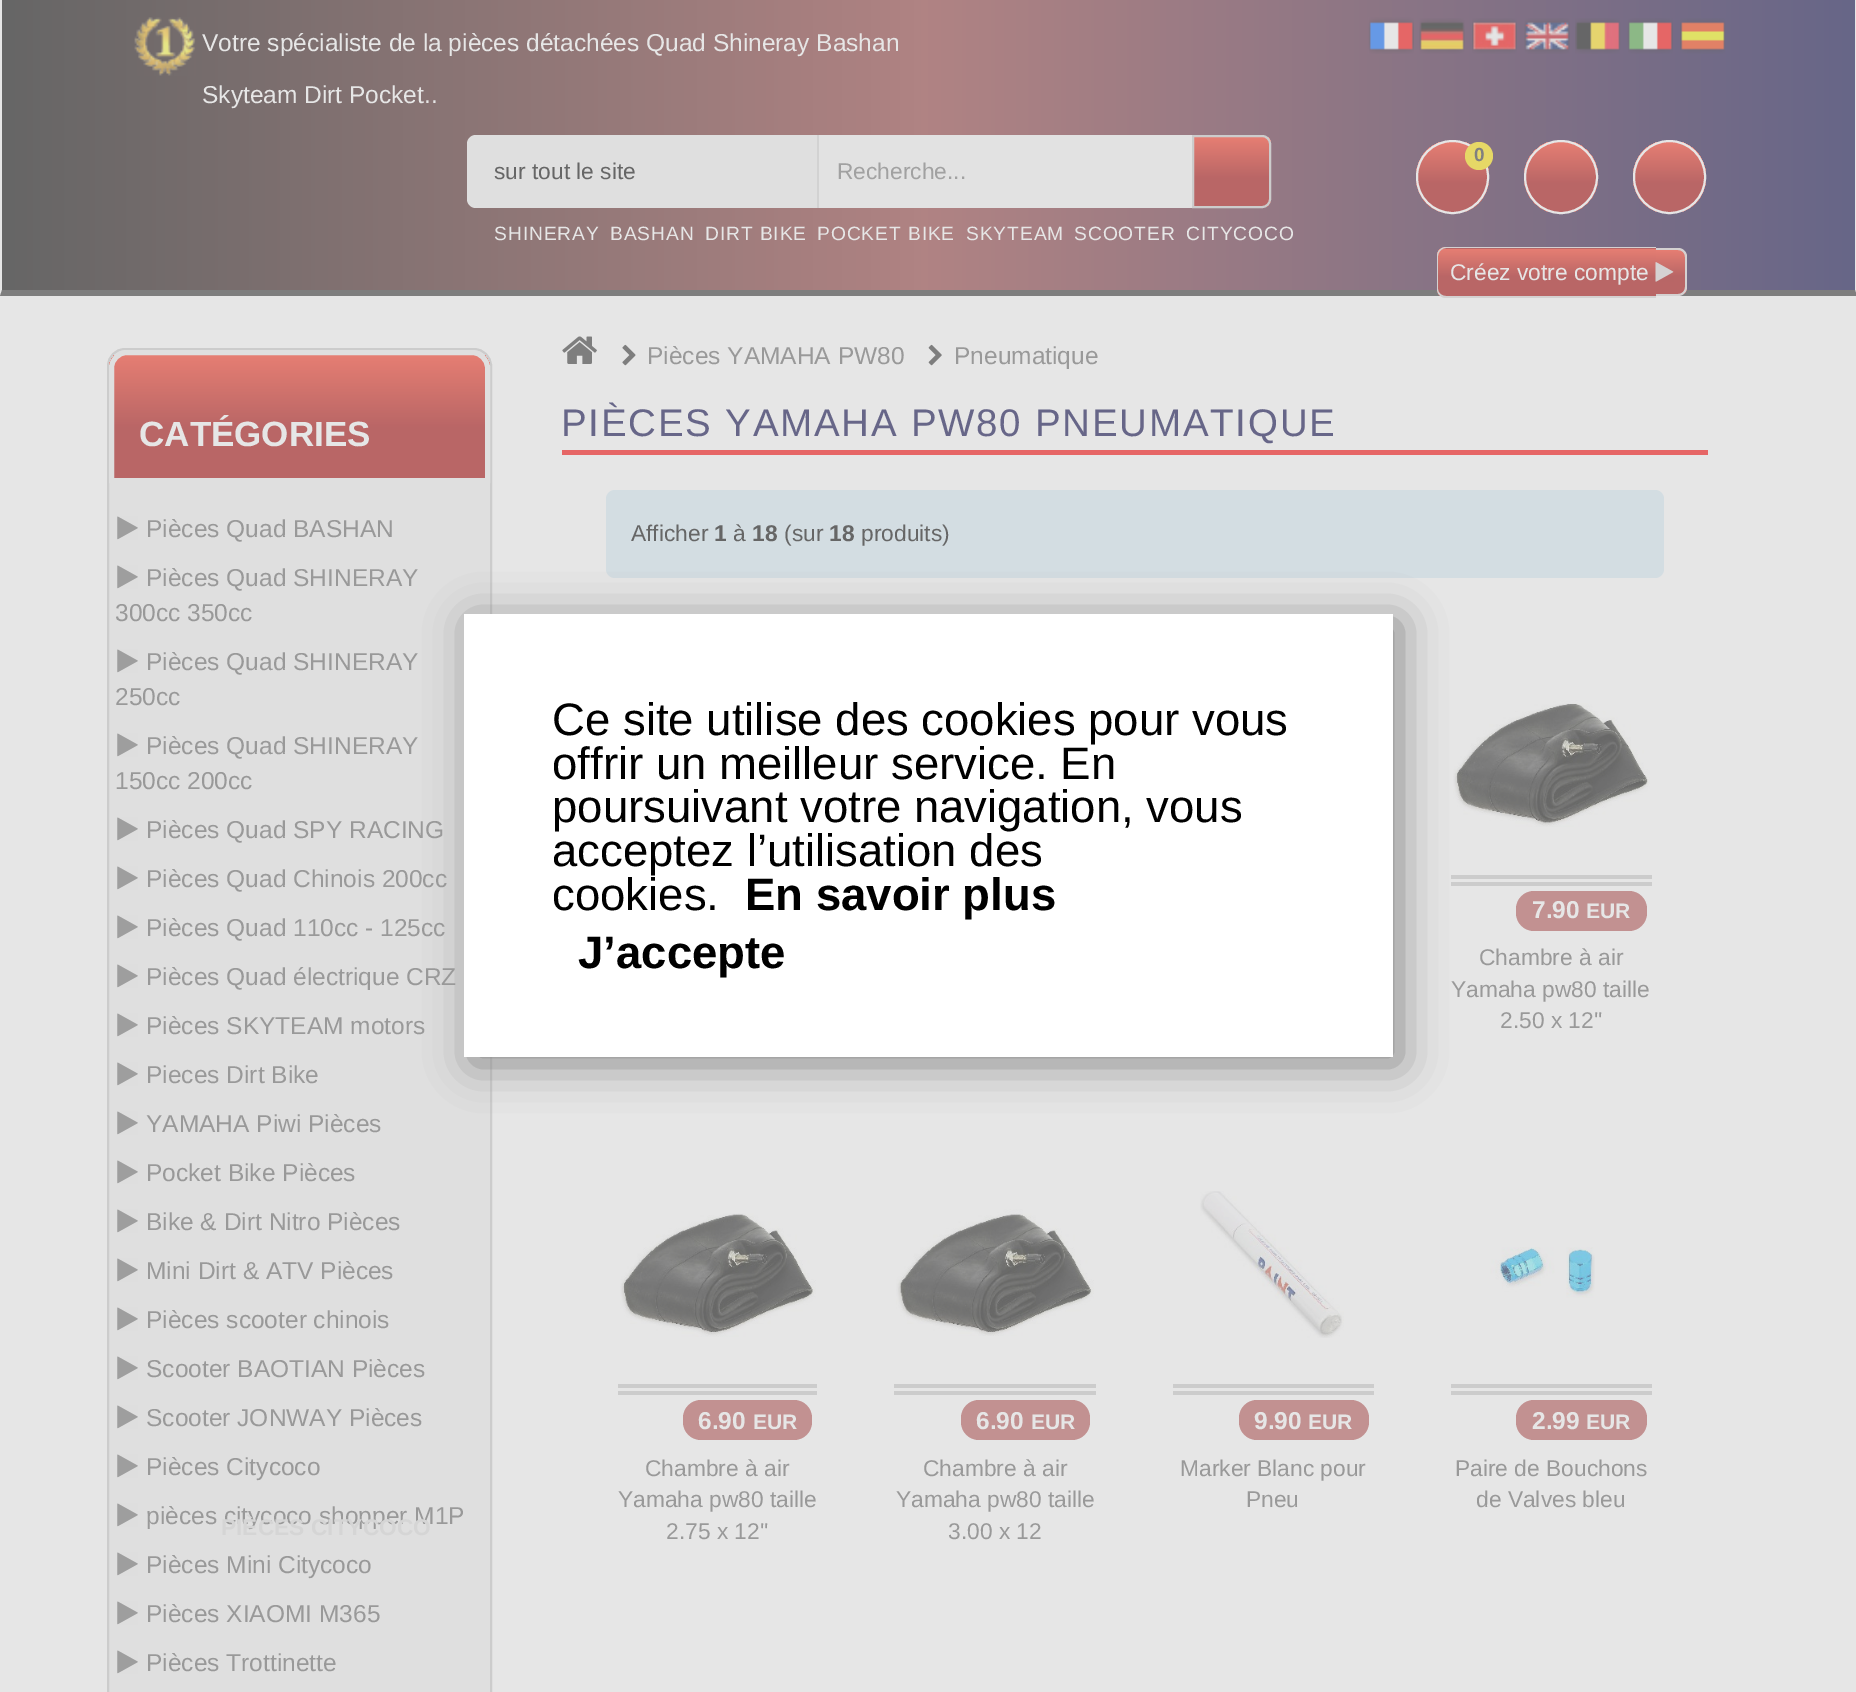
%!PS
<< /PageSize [1856 1692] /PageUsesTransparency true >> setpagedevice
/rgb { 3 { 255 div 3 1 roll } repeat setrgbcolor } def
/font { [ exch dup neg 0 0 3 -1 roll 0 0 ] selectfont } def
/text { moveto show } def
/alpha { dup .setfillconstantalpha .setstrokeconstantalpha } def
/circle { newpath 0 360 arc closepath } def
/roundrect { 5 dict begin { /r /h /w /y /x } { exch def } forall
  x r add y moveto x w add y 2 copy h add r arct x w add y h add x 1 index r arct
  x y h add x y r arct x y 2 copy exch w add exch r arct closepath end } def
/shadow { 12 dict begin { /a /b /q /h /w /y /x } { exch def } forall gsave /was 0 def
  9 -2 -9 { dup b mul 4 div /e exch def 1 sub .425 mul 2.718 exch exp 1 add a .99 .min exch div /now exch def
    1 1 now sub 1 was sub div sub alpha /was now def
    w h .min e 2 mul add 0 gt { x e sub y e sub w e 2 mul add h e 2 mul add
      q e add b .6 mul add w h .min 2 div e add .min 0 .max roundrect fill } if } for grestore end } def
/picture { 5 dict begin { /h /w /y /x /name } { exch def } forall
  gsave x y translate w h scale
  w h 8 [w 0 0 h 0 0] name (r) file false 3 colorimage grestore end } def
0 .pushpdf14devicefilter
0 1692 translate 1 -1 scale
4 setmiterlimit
230 230 230 rgb
0 0 1856 1692 rectfill
gsave 2 0 moveto 1853 0 rlineto 0 290 rlineto -1853 0 rlineto closepath clip newpath
<< /ShadingType 2 /ColorSpace /DeviceRGB /Coords [1.8 146 1855 146] /Extend [true true] /Function << /FunctionType 3 /Domain [0 1] /Functions [<< /FunctionType 2 /Domain [0 1] /C0 [0.4 0.4 0.4] /C1 [0.69 0.514 0.514] /N 1 >> << /FunctionType 2 /Domain [0 1] /C0 [0.69 0.514 0.514] /C1 [0.404 0.4 0.533] /N 1 >>] /Bounds [0.5] /Encode [0 1 0 1] >> >> shfill grestore
126 126 126 rgb
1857 296 moveto -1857 0 rlineto 2 -6 rlineto 1853 0 rlineto closepath fill
(img_01.rgb) 134 17 62 59 picture
(img_02.rgb) 1368 17 46 37 picture
(img_03.rgb) 1419 18 46 36 picture
(img_04.rgb) 1472 18 45 36 picture
(img_05.rgb) 1524 18 46 36 picture
(img_06.rgb) 1575 18 46 36 picture
(img_07.rgb) 1627 18 46 36 picture
(img_08.rgb) 1680 18 46 36 picture
210 210 210 rgb
817 135 2 73 rectfill
223 223 223 rgb
476 135 moveto 341 0 rlineto 0 73 rlineto -341 0 rlineto -5 0 -9 -4 -9 -9 rcurveto 0 -55 rlineto 0 -5 4 -9 9 -9 rcurveto closepath fill
226 226 226 rgb
819 135 373 73 rectfill
gsave
1192 135 moveto 70 0 rlineto 5 0 9 4 9 9 rcurveto 0 55 rlineto 0 5 -4 9 -9 9 rcurveto -70 0 rlineto closepath clip newpath
gsave 1194 137 moveto 77 0 rlineto 0 70 rlineto -77 0 rlineto closepath clip newpath
<< /ShadingType 2 /ColorSpace /DeviceRGB /Coords [1231 137 1231 207] /Extend [true true] /Function << /FunctionType 3 /Domain [0 1] /Functions [<< /FunctionType 2 /Domain [0 1] /C0 [0.902 0.494 0.451] /C1 [0.725 0.4 0.4] /N 1 >> << /FunctionType 2 /Domain [0 1] /C0 [0.725 0.4 0.4] /C1 [0.725 0.4 0.4] /N 1 >>] /Bounds [0.6] /Encode [0 1 0 1] >> >> shfill grestore
grestore
204 204 204 rgb
2 setlinewidth
1193 136 moveto 69 0 rlineto 4.5 0 8 3.5 8 8 rcurveto 0 55 rlineto 0 4.5 -3.5 8 -8 8 rcurveto -69 0 rlineto closepath stroke
gsave
1416 140 73 74 36.5 roundrect clip newpath
gsave 1416 142 moveto 73 0 rlineto 0 70 rlineto -73 0 rlineto closepath clip newpath
<< /ShadingType 2 /ColorSpace /DeviceRGB /Coords [1453 142 1453 212] /Extend [true true] /Function << /FunctionType 3 /Domain [0 1] /Functions [<< /FunctionType 2 /Domain [0 1] /C0 [0.902 0.494 0.451] /C1 [0.725 0.4 0.4] /N 1 >> << /FunctionType 2 /Domain [0 1] /C0 [0.725 0.4 0.4] /C1 [0.725 0.4 0.4] /N 1 >>] /Bounds [0.6] /Encode [0 1 0 1] >> >> shfill grestore
grestore
230 230 230 rgb
1417 141 71 72 35.5 roundrect stroke
230 216 102 rgb
1479 156 14 circle fill
gsave
1524 140 74 74 37 roundrect clip newpath
gsave 1524 142 moveto 74 0 rlineto 0 70 rlineto -74 0 rlineto closepath clip newpath
<< /ShadingType 2 /ColorSpace /DeviceRGB /Coords [1561 142 1561 212] /Extend [true true] /Function << /FunctionType 3 /Domain [0 1] /Functions [<< /FunctionType 2 /Domain [0 1] /C0 [0.902 0.494 0.451] /C1 [0.725 0.4 0.4] /N 1 >> << /FunctionType 2 /Domain [0 1] /C0 [0.725 0.4 0.4] /C1 [0.725 0.4 0.4] /N 1 >>] /Bounds [0.6] /Encode [0 1 0 1] >> >> shfill grestore
grestore
230 230 230 rgb
1561 177 36 circle stroke
gsave
1633 140 73 74 36.5 roundrect clip newpath
gsave 1633 142 moveto 73 0 rlineto 0 70 rlineto -73 0 rlineto closepath clip newpath
<< /ShadingType 2 /ColorSpace /DeviceRGB /Coords [1670 142 1670 212] /Extend [true true] /Function << /FunctionType 3 /Domain [0 1] /Functions [<< /FunctionType 2 /Domain [0 1] /C0 [0.902 0.494 0.451] /C1 [0.725 0.4 0.4] /N 1 >> << /FunctionType 2 /Domain [0 1] /C0 [0.725 0.4 0.4] /C1 [0.725 0.4 0.4] /N 1 >>] /Bounds [0.6] /Encode [0 1 0 1] >> >> shfill grestore
grestore
1634 141 71 72 35.5 roundrect stroke
gsave
1446 247 moveto 210 0 rlineto 0 51 rlineto -210 0 rlineto -5 0 -9 -4 -9 -9 rcurveto 0 -33 rlineto 0 -5 4 -9 9 -9 rcurveto closepath clip newpath
gsave 1437 247 moveto 219 0 rlineto 0 2 rlineto -219 0 rlineto closepath clip newpath
<< /ShadingType 2 /ColorSpace /DeviceRGB /Coords [1547 201 1547 249] /Extend [true true] /Function << /FunctionType 3 /Domain [0 1] /Functions [<< /FunctionType 2 /Domain [0 1] /C0 [0.902 0.494 0.451] /C1 [0.725 0.4 0.4] /N 1 >> << /FunctionType 2 /Domain [0 1] /C0 [0.725 0.4 0.4] /C1 [0.725 0.4 0.4] /N 1 >>] /Bounds [0.6] /Encode [0 1 0 1] >> >> shfill grestore
gsave 1437 249 moveto 219 0 rlineto 0 47 rlineto -219 0 rlineto closepath clip newpath
<< /ShadingType 2 /ColorSpace /DeviceRGB /Coords [1547 249 1547 296] /Extend [true true] /Function << /FunctionType 3 /Domain [0 1] /Functions [<< /FunctionType 2 /Domain [0 1] /C0 [0.902 0.494 0.451] /C1 [0.725 0.4 0.4] /N 1 >> << /FunctionType 2 /Domain [0 1] /C0 [0.725 0.4 0.4] /C1 [0.725 0.4 0.4] /N 1 >>] /Bounds [0.6] /Encode [0 1 0 1] >> >> shfill grestore
grestore
212 209 209 rgb
1446 247 moveto 210 0 rlineto 0 51 rlineto -210 0 rlineto -5 0 -9 -4 -9 -9 rcurveto 0 -33 rlineto 0 -5 4 -9 9 -9 rcurveto closepath 1446 248 moveto 210 0 rlineto 0 48 rlineto -210 0 rlineto -4 0 -8 -3 -8 -7 rcurveto 0 -33 rlineto 0 -4 4 -8 8 -8 rcurveto closepath eofill
gsave
1656 249 moveto 22 0 rlineto 5 0 9 4 9 9 rcurveto 0 29 rlineto 0 5 -4 9 -9 9 rcurveto -22 0 rlineto closepath clip newpath
gsave 1656 250 moveto 31 0 rlineto 0 44 rlineto -31 0 rlineto closepath clip newpath
<< /ShadingType 2 /ColorSpace /DeviceRGB /Coords [1670 250 1670 294] /Extend [true true] /Function << /FunctionType 3 /Domain [0 1] /Functions [<< /FunctionType 2 /Domain [0 1] /C0 [0.902 0.494 0.451] /C1 [0.725 0.4 0.4] /N 1 >> << /FunctionType 2 /Domain [0 1] /C0 [0.725 0.4 0.4] /C1 [0.725 0.4 0.4] /N 1 >>] /Bounds [0.6] /Encode [0 1 0 1] >> >> shfill grestore
grestore
1656 248 moveto 22 0 rlineto 5 0 9 4 9 9 rcurveto 0 30 rlineto 0 5 -4 9 -9 9 rcurveto -22 0 rlineto closepath 1656 250 moveto 22 0 rlineto 4 0 7 3 7 7 rcurveto 0 30 rlineto 0 4 -3 7 -7 7 rcurveto -22 0 rlineto closepath eofill
(img_09.rgb) 1655 262 19 20 picture
223 223 223 rgb
108 349 383 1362 17 roundrect gsave fill grestore
204 204 204 rgb
stroke
gsave
127 350 moveto 345 0 rlineto 10 0 18 8 18 18 rcurveto 0 115 rlineto -381 0 rlineto 0 -115 rlineto 0 -10 8 -18 18 -18 rcurveto closepath clip newpath
gsave 109 355 moveto 381 0 rlineto 0 123 rlineto -381 0 rlineto closepath clip newpath
<< /ShadingType 2 /ColorSpace /DeviceRGB /Coords [299 355 299 478] /Extend [true true] /Function << /FunctionType 3 /Domain [0 1] /Functions [<< /FunctionType 2 /Domain [0 1] /C0 [0.902 0.494 0.451] /C1 [0.725 0.4 0.4] /N 1 >> << /FunctionType 2 /Domain [0 1] /C0 [0.725 0.4 0.4] /C1 [0.725 0.4 0.4] /N 1 >>] /Bounds [0.6] /Encode [0 1 0 1] >> >> shfill grestore
grestore
223 223 223 rgb
5 setlinewidth
127 352.5 moveto 345 0 rlineto 8.5 0 15.5 7 15.5 15.5 rcurveto 0 112.5 rlineto -376 0 rlineto 0 -112.5 rlineto 0 -8.5 7 -15.5 15.5 -15.5 rcurveto closepath stroke
(img_10.rgb) 117 516 21 24 picture
(img_10.rgb) 117 565 21 24 picture
(img_10.rgb) 117 649 21 24 picture
(img_10.rgb) 117 733 21 24 picture
(img_10.rgb) 117 817 21 24 picture
(img_10.rgb) 117 866 21 24 picture
(img_10.rgb) 117 915 21 24 picture
(img_10.rgb) 117 964 21 24 picture
(img_10.rgb) 117 1013 21 24 picture
(img_10.rgb) 117 1062 21 24 picture
(img_10.rgb) 117 1111 21 24 picture
(img_10.rgb) 117 1160 21 24 picture
(img_10.rgb) 117 1209 21 24 picture
(img_10.rgb) 117 1258 21 24 picture
(img_10.rgb) 117 1307 21 24 picture
(img_10.rgb) 117 1356 21 24 picture
(img_10.rgb) 117 1405 21 24 picture
(img_10.rgb) 117 1454 21 24 picture
(img_10.rgb) 117 1503 21 24 picture
(img_10.rgb) 117 1552 21 24 picture
(img_10.rgb) 117 1601 21 24 picture
(img_10.rgb) 117 1650 21 24 picture
(img_11.rgb) 562 336 35 28 picture
(img_12.rgb) 622 344 14 22 picture
(img_13.rgb) 928 344 14 22 picture
230 102 102 rgb
562 450 1146 5 rectfill
211 221 226 rgb
606 490 1058 88 9 roundrect fill
(img_14.rgb) 1453 700 197 127 picture
204 204 204 rgb
1451 875 201 4 rectfill
1451 882 201 4 rectfill
194 145 145 rgb
1516 891 131 40 18 roundrect fill
(img_15.rgb) 620 1213 196 124 picture
204 204 204 rgb
618 1384 199 4 rectfill
618 1391 199 4 rectfill
194 145 145 rgb
683 1400 129 40 18 roundrect fill
(img_16.rgb) 896 1209 198 127 picture
204 204 204 rgb
894 1384 202 4 rectfill
894 1391 202 4 rectfill
194 145 145 rgb
961 1400 129 40 18 roundrect fill
(img_17.rgb) 1200 1191 144 147 picture
204 204 204 rgb
1173 1384 201 4 rectfill
1173 1391 201 4 rectfill
194 145 145 rgb
1239 1400 130 40 18 roundrect fill
(img_18.rgb) 1490 1247 105 51 picture
204 204 204 rgb
1451 1384 201 4 rectfill
1451 1391 201 4 rectfill
194 145 145 rgb
1516 1400 131 40 18 roundrect fill
136 136 136 rgb
471 621 929 443 0 22 1 shadow
255 255 255 rgb
464 614 929 443 rectfill
/LiberationSans-Regular 24.5 font
230 230 230 rgb
(Votre spécialiste de la pièces détachées Quad Shineray Bashan) 202 51 text
(Skyteam Dirt Pocket..) 202 103 text
/LiberationSans-Regular 22.75 font
102 102 102 rgb
(sur tout le site) 494 179 text
161 161 161 rgb
(Recherche...) 837 179 text
/LiberationSans-Bold 19 font
128 128 128 rgb
(0) 1474 161 text
/LiberationSans-Regular 22.75 font
230 230 230 rgb
(Créez votre compte) 1450 280 text
/LiberationSans-Regular 19.25 font
494 240 moveto 0.9 0 (SHINERAY) ashow
610 240 moveto 0.9 0 (BASHAN) ashow
705 240 moveto 0.9 0 (DIRT BIKE) ashow
817 240 moveto 0.9 0 (POCKET BIKE) ashow
966 240 moveto 0.9 0 (SKYTEAM) ashow
1074 240 moveto 0.9 0 (SCOOTER) ashow
1186 240 moveto 0.9 0 (CITYCOCO) ashow
/LiberationSans-Bold 35 font
(CATÉGORIES) 139 446 text
/LiberationSans-Regular 24.5 font
153 153 153 rgb
(Pièces Quad BASHAN) 146 537 text
(Pièces Quad SHINERAY) 146 586 text
(300cc 350cc) 115 621 text
(Pièces Quad SHINERAY) 146 670 text
(250cc) 115 705 text
(Pièces Quad SHINERAY) 146 754 text
(150cc 200cc) 115 789 text
(Pièces Quad SPY RACING) 146 838 text
(Pièces Quad Chinois 200cc) 146 887 text
(Pièces Quad 110cc - 125cc) 146 936 text
(Pièces Quad électrique CRZ) 146 985 text
(Pièces SKYTEAM motors) 146 1034 text
(Pieces Dirt Bike) 146 1083 text
(YAMAHA Piwi Pièces) 146 1132 text
(Pocket Bike Pièces) 146 1181 text
(Bike & Dirt Nitro Pièces) 146 1230 text
(Mini Dirt & ATV Pièces) 146 1279 text
(Pièces scooter chinois) 146 1328 text
(Scooter BAOTIAN Pièces) 146 1377 text
(Scooter JONWAY Pièces) 146 1426 text
(Pièces Citycoco) 146 1475 text
(pièces citycoco shopper M1P) 146 1524 text
/LiberationSans-Bold 22.75 font
213 213 213 rgb
(PIÈCES CITYCOCO) 221 1535 text
/LiberationSans-Regular 24.5 font
153 153 153 rgb
(Pièces Mini Citycoco) 146 1573 text
(Pièces XIAOMI M365) 146 1622 text
(Pièces Trottinette) 146 1671 text
(Pièces YAMAHA PW80) 647 364 text
(Pneumatique) 954 364 text
/LiberationSans-Regular 38.5 font
103 102 136 rgb
561 436 moveto 1.75 0 (PIÈCES YAMAHA PW80 PNEUMATIQUE) ashow
/LiberationSans-Regular 22.75 font
102 102 102 rgb
(Afficher) 631 541 text
/LiberationSans-Bold 22.75 font
(1) 714 541 text
/LiberationSans-Regular 22.75 font
(à) 733 541 text
/LiberationSans-Bold 22.75 font
(18) 752 541 text
/LiberationSans-Regular 22.75 font
(\(sur) 784 541 text
/LiberationSans-Bold 22.75 font
(18) 829 541 text
/LiberationSans-Regular 22.75 font
(produits\)) 861 541 text
/LiberationSans-Bold 24.5 font
230 230 230 rgb
(7.90) 1532 918 text
/LiberationSans-Bold 21 font
(EUR) 1586 918 text
/LiberationSans-Regular 22.75 font
153 153 153 rgb
(Chambre à air) 1479 965 text
(Yamaha pw80 taille) 1451 997 text
(2.50 x 12'') 1500 1028 text
/LiberationSans-Bold 24.5 font
230 230 230 rgb
(6.90) 698 1429 text
/LiberationSans-Bold 21 font
(EUR) 753 1429 text
/LiberationSans-Regular 22.75 font
153 153 153 rgb
(Chambre à air) 645 1476 text
(Yamaha pw80 taille) 618 1507 text
(2.75 x 12'') 666 1539 text
/LiberationSans-Bold 24.5 font
230 230 230 rgb
(6.90) 976 1429 text
/LiberationSans-Bold 21 font
(EUR) 1031 1429 text
/LiberationSans-Regular 22.75 font
153 153 153 rgb
(Chambre à air) 923 1476 text
(Yamaha pw80 taille) 896 1507 text
(3.00 x 12) 948 1539 text
/LiberationSans-Bold 24.5 font
230 230 230 rgb
(9.90) 1254 1429 text
/LiberationSans-Bold 21 font
(EUR) 1308 1429 text
/LiberationSans-Regular 22.75 font
153 153 153 rgb
(Marker Blanc pour) 1180 1476 text
(Pneu) 1246 1507 text
/LiberationSans-Bold 24.5 font
230 230 230 rgb
(2.99) 1532 1429 text
/LiberationSans-Bold 21 font
(EUR) 1586 1429 text
/LiberationSans-Regular 22.75 font
153 153 153 rgb
(Paire de Bouchons) 1455 1476 text
(de Valves bleu) 1476 1507 text
/LiberationSans-Regular 45.5 font
0 0 0 rgb
(Ce site utilise des cookies pour vous) 552 735 text
(offrir un meilleur service. En) 552 779 text
(poursuivant votre navigation, vous) 552 822 text
(acceptez l’utilisation des) 552 866 text
(cookies.) 552 910 text
/LiberationSans-Bold 45.5 font
(En savoir plus) 745 910 text
(J’accepte) 578 968 text
.poppdf14devicefilter showpage
